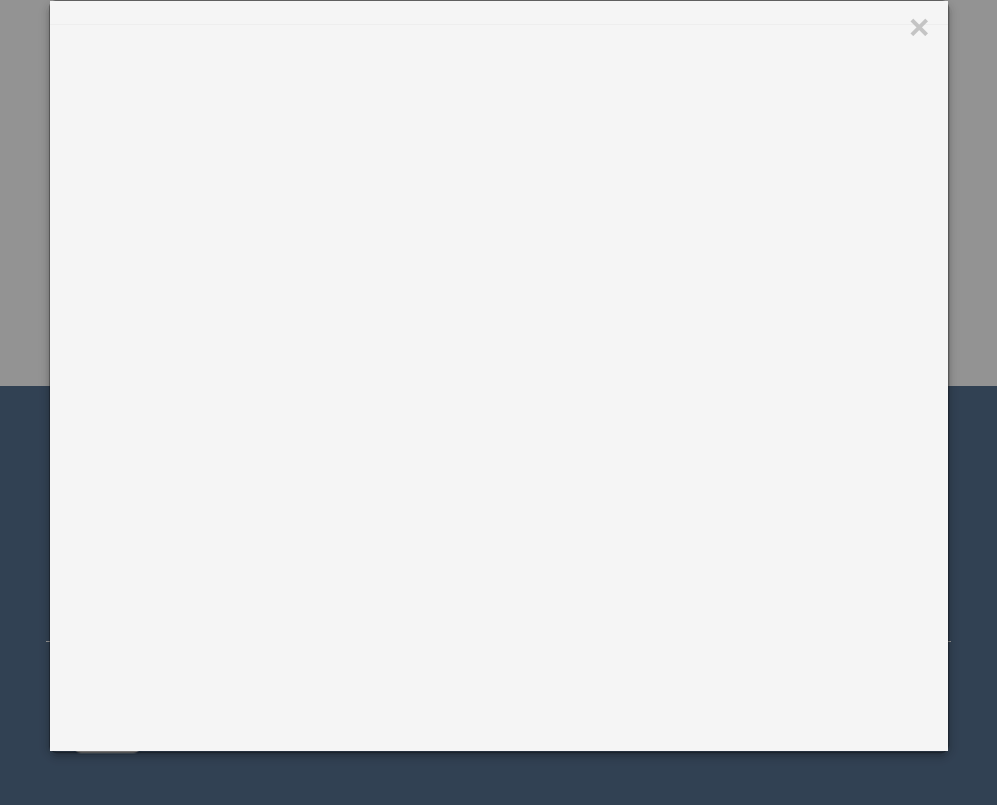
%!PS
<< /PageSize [997 805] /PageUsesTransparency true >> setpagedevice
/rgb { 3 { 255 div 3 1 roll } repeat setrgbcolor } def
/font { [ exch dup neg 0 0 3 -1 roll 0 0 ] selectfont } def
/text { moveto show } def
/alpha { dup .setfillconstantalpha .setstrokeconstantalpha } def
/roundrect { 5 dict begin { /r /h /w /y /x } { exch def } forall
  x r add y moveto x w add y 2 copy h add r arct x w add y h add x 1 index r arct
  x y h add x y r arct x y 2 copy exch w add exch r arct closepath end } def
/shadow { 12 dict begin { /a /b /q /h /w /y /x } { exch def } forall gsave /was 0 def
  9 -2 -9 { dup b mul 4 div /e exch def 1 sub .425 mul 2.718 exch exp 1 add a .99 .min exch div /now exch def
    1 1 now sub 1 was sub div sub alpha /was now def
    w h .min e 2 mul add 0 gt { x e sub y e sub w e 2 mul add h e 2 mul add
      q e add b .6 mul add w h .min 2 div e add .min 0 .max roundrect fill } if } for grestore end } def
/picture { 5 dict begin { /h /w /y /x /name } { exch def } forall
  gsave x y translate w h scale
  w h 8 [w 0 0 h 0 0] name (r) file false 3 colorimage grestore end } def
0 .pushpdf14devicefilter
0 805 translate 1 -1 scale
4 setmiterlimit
147 147 147 rgb
0 0 997 805 rectfill
49 65 83 rgb
0 386 997 419 rectfill
153 153 153 rgb
46 641 905 1 rectfill
(img_01.rgb) 71 751 402 4 picture
0 0 0 rgb
49 4 900 752 8 4.5 0.3 shadow
0.3 alpha
49.5 0.5 899 752 7.5 roundrect stroke
1 alpha
245 245 245 rgb
50 1 898 750 rectfill
238 238 238 rgb
50 24 898 1 rectfill
/LiberationSans-Bold 35 font
196 196 196 rgb
(×) 909 39 text
.poppdf14devicefilter showpage
